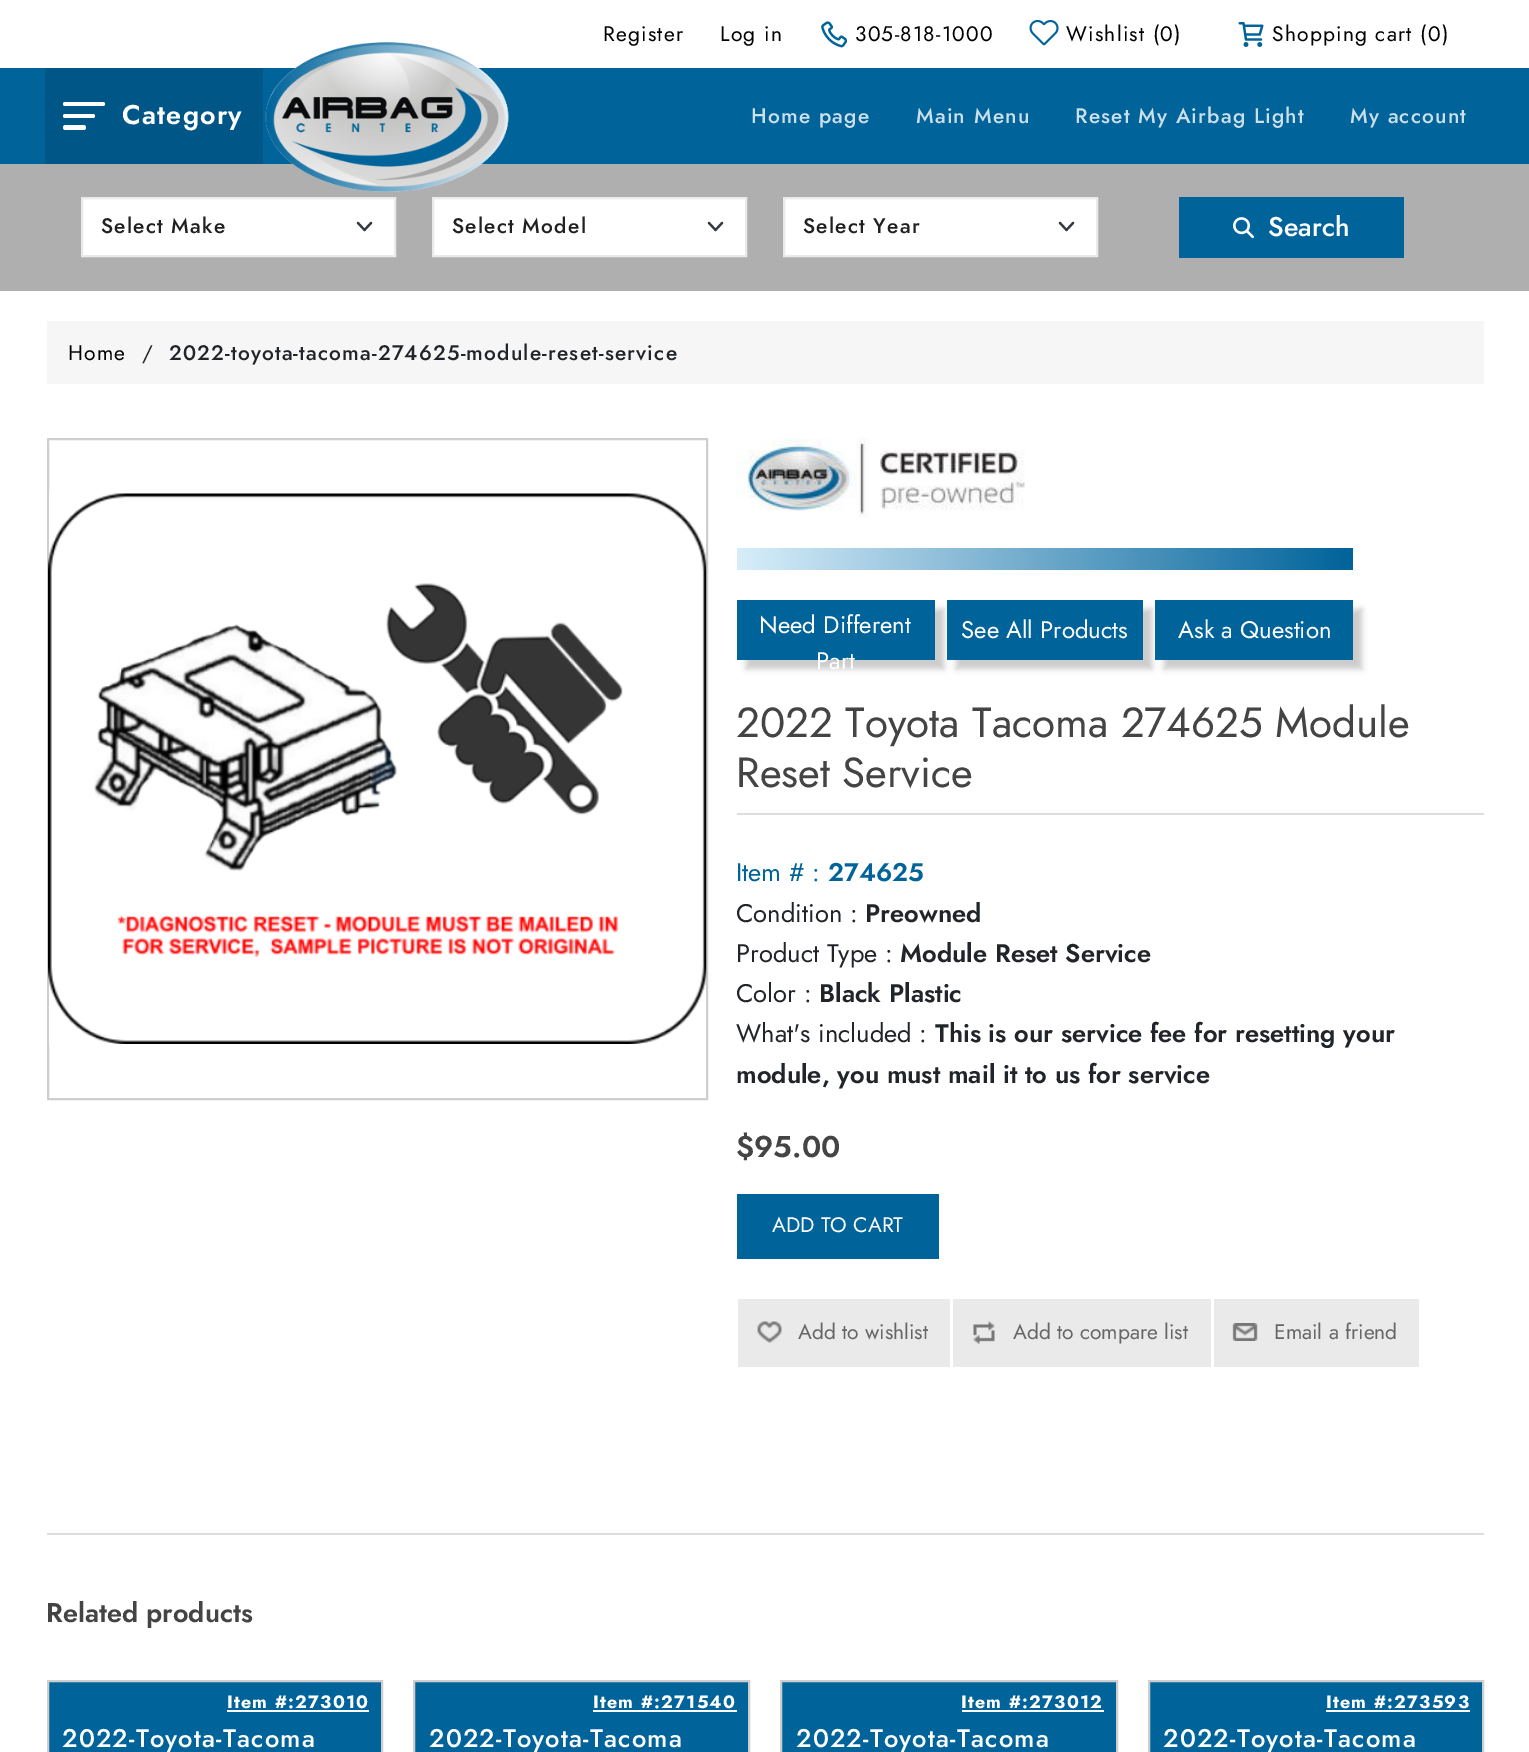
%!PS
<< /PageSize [1529 1752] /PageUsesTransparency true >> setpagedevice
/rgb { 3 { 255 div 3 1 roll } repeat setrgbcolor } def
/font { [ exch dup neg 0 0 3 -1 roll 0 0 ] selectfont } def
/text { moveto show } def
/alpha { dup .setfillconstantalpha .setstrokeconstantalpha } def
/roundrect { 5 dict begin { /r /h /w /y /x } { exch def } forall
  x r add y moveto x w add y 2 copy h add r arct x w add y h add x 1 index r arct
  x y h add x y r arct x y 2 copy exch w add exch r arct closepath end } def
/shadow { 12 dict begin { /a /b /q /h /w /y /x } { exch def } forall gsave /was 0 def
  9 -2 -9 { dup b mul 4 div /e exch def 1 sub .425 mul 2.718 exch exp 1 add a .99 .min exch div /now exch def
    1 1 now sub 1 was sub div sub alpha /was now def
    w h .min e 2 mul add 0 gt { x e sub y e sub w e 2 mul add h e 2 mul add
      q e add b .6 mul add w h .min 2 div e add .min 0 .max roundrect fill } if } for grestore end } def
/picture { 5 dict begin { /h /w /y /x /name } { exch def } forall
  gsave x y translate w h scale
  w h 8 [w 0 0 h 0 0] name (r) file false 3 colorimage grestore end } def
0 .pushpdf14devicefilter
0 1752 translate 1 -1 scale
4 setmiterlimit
255 255 255 rgb
0 0 1529 1752 rectfill
(img_01.rgb) 821 21 27 27 picture
(img_02.rgb) 1029 20 30 26 picture
(img_03.rgb) 1238 22 26 25 picture
0 99 154 rgb
0 68 1529 96 rectfill
0 87 135 rgb
45 68 218 96 rectfill
255 255 255 rgb
63 102 42 4 2 roundrect fill
63 114 32 4 2 roundrect fill
63 125 23 5 2.5 roundrect fill
175 175 175 rgb
0 164 1529 127 rectfill
(img_04.rgb) 265 42 244 150 picture
255 255 255 rgb
83 199 311 56 rectfill
52 58 64 rgb
2.2 setlinewidth
1 setlinecap
1 setlinejoin
358 223 moveto 6.5 7 rlineto 6.5 -7 rlineto stroke
234 234 234 rgb
2 setlinewidth
0 setlinecap
0 setlinejoin
82 198 313 58 rectstroke
255 255 255 rgb
434 199 311 56 rectfill
52 58 64 rgb
2.2 setlinewidth
1 setlinecap
1 setlinejoin
709 223 moveto 6.5 7 rlineto 6.5 -7 rlineto stroke
234 234 234 rgb
2 setlinewidth
0 setlinecap
0 setlinejoin
433 198 313 58 rectstroke
255 255 255 rgb
785 199 311 56 rectfill
52 58 64 rgb
2.2 setlinewidth
1 setlinecap
1 setlinejoin
1060 223 moveto 6.5 7 rlineto 6.5 -7 rlineto stroke
234 234 234 rgb
2 setlinewidth
0 setlinecap
0 setlinejoin
784 198 313 58 rectstroke
0 99 154 rgb
1179 197 225 61 rectfill
(img_05.rgb) 1233 217 21 22 picture
246 246 246 rgb
47 321 1437 63 rectfill
221 221 221 rgb
47 1533 1437 2 rectfill
206 206 206 rgb
48 439 659 660 rectstroke
(img_06.rgb) 48 493 659 551 picture
(img_07.rgb) 736 438 289 80 picture
gsave 737 548 moveto 616 0 rlineto 0 22 rlineto -616 0 rlineto closepath clip newpath
<< /ShadingType 2 /ColorSpace /DeviceRGB /Coords [737 559 1353 559] /Extend [true true] /Function << /FunctionType 2 /Domain [0 1] /C0 [0.847 0.933 0.98] /C1 [0 0.388 0.604] /N 1 >> >> shfill grestore
0 0 0 rgb
746 609 198 60 0 3 0.2 shadow
0 99 154 rgb
737 600 198 60 rectfill
0 0 0 rgb
956 609 196 60 0 3 0.2 shadow
0 99 154 rgb
947 600 196 60 rectfill
0 0 0 rgb
1164 609 198 60 0 3 0.2 shadow
0 99 154 rgb
1155 600 198 60 rectfill
221 221 221 rgb
737 813 747 2 rectfill
0 99 154 rgb
737 1194 202 65 rectfill
234 234 234 rgb
738 1299 212 68 rectfill
(img_08.rgb) 757 1321 25 22 picture
953 1299 258 68 rectfill
(img_09.rgb) 973 1321 22 23 picture
1214 1299 205 68 rectfill
(img_10.rgb) 1232 1323 26 18 picture
0 99 154 rgb
48 1681 moveto 334 0 rlineto 0 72 rlineto -334 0 rlineto closepath gsave fill grestore
206 206 206 rgb
stroke
255 255 255 rgb
227 1710 142 2 rectfill
0 99 154 rgb
414 1681 moveto 335 0 rlineto 0 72 rlineto -335 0 rlineto closepath gsave fill grestore
206 206 206 rgb
stroke
255 255 255 rgb
593 1710 144 2 rectfill
0 99 154 rgb
781 1681 moveto 336 0 rlineto 0 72 rlineto -336 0 rlineto closepath gsave fill grestore
206 206 206 rgb
stroke
255 255 255 rgb
962 1710 142 2 rectfill
0 99 154 rgb
1149 1681 moveto 334 0 rlineto 0 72 rlineto -334 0 rlineto closepath gsave fill grestore
206 206 206 rgb
stroke
255 255 255 rgb
1326 1710 144 2 rectfill
/Jost-Regular 21 font
0 0 0 rgb
603 41 moveto 1.2 0 (Register) ashow
720 41 moveto 1.2 0 (Log in) ashow
855 41 moveto 1.2 0 (305-818-1000) ashow
1066 41 moveto 1.2 0 (Wishlist \(0\)) ashow
1272 41 moveto 1.2 0 (Shopping cart \(0\)) ashow
/Jost-SemiBold 27 font
255 255 255 rgb
122 124 moveto 1.2 0 (Category) ashow
/Jost-Medium 21 font
204 224 235 rgb
751 123 moveto 1.2 0 (Home page) ashow
916 123 moveto 1.2 0 (Main Menu) ashow
1075 123 moveto 1.2 0 (Reset My Airbag Light) ashow
1350 123 moveto 1.2 0 (My account) ashow
32 32 32 rgb
101 233 moveto 1.2 0 (Select Make) ashow
452 233 moveto 1.2 0 (Select Model) ashow
803 233 moveto 1.2 0 (Select Year) ashow
/Jost-Medium 27 font
255 255 255 rgb
(Search) 1268 236 text
/Jost-Regular 21 font
0 0 0 rgb
68 360 moveto 1.2 0 (Home) ashow
33 37 41 rgb
142 360 moveto 1.2 0 (/) ashow
/Jost-Medium 21 font
169 360 moveto 1.2 0 (2022-toyota-tacoma-274625-module-reset-service) ashow
/Jost-Regular 24 font
255 255 255 rgb
(Need Different) 759 633 text
(Part) 816 669 text
(See All Products) 961 638 text
(Ask a Question) 1178 638 text
/Jost-Regular 42 font
68 68 68 rgb
(2022 Toyota Tacoma 274625 Module) 736 737 text
(Reset Service) 736 787 text
/Jost-Regular 25.5 font
0 99 154 rgb
(Item # :) 736 881 text
/Jost-SemiBold 25.5 font
(274625) 828 881 text
/Jost-Regular 25.5 font
33 37 41 rgb
(Condition :) 736 922 text
/Jost-SemiBold 25.5 font
(Preowned) 865 922 text
/Jost-Regular 25.5 font
(Product Type :) 736 962 text
/Jost-SemiBold 25.5 font
(Module Reset Service) 900 962 text
/Jost-Regular 25.5 font
(Color :) 736 1002 text
/Jost-SemiBold 25.5 font
(Black Plastic) 819 1002 text
/Jost-Regular 25.5 font
(What's included :) 736 1042 text
/Jost-SemiBold 25.5 font
(This is our service fee for resetting your) 935 1042 text
(module, you must mail it to us for service) 736 1083 text
/Jost-SemiBold 30 font
68 68 68 rgb
($95.00) 736 1157 text
/Jost-Regular 21 font
255 255 255 rgb
(ADD TO CART) 772 1232 text
102 102 102 rgb
(Add to wishlist) 798 1339 text
(Add to compare list) 1013 1339 text
(Email a friend) 1274 1339 text
/Jost-SemiBold 27 font
68 68 68 rgb
(Related products) 46 1622 text
/Jost-Bold 18 font
255 255 255 rgb
227 1708 moveto 1.2 0 (Item #:273010) ashow
/Jost-Medium 25.5 font
62 1747 moveto 1.2 0 (2022-Toyota-Tacoma) ashow
/Jost-Bold 18 font
593 1708 moveto 1.2 0 (Item #:271540) ashow
/Jost-Medium 25.5 font
429 1747 moveto 1.2 0 (2022-Toyota-Tacoma) ashow
/Jost-Bold 18 font
961 1708 moveto 1.2 0 (Item #:273012) ashow
/Jost-Medium 25.5 font
796 1747 moveto 1.2 0 (2022-Toyota-Tacoma) ashow
/Jost-Bold 18 font
1326 1708 moveto 1.2 0 (Item #:273593) ashow
/Jost-Medium 25.5 font
1163 1747 moveto 1.2 0 (2022-Toyota-Tacoma) ashow
.poppdf14devicefilter showpage
